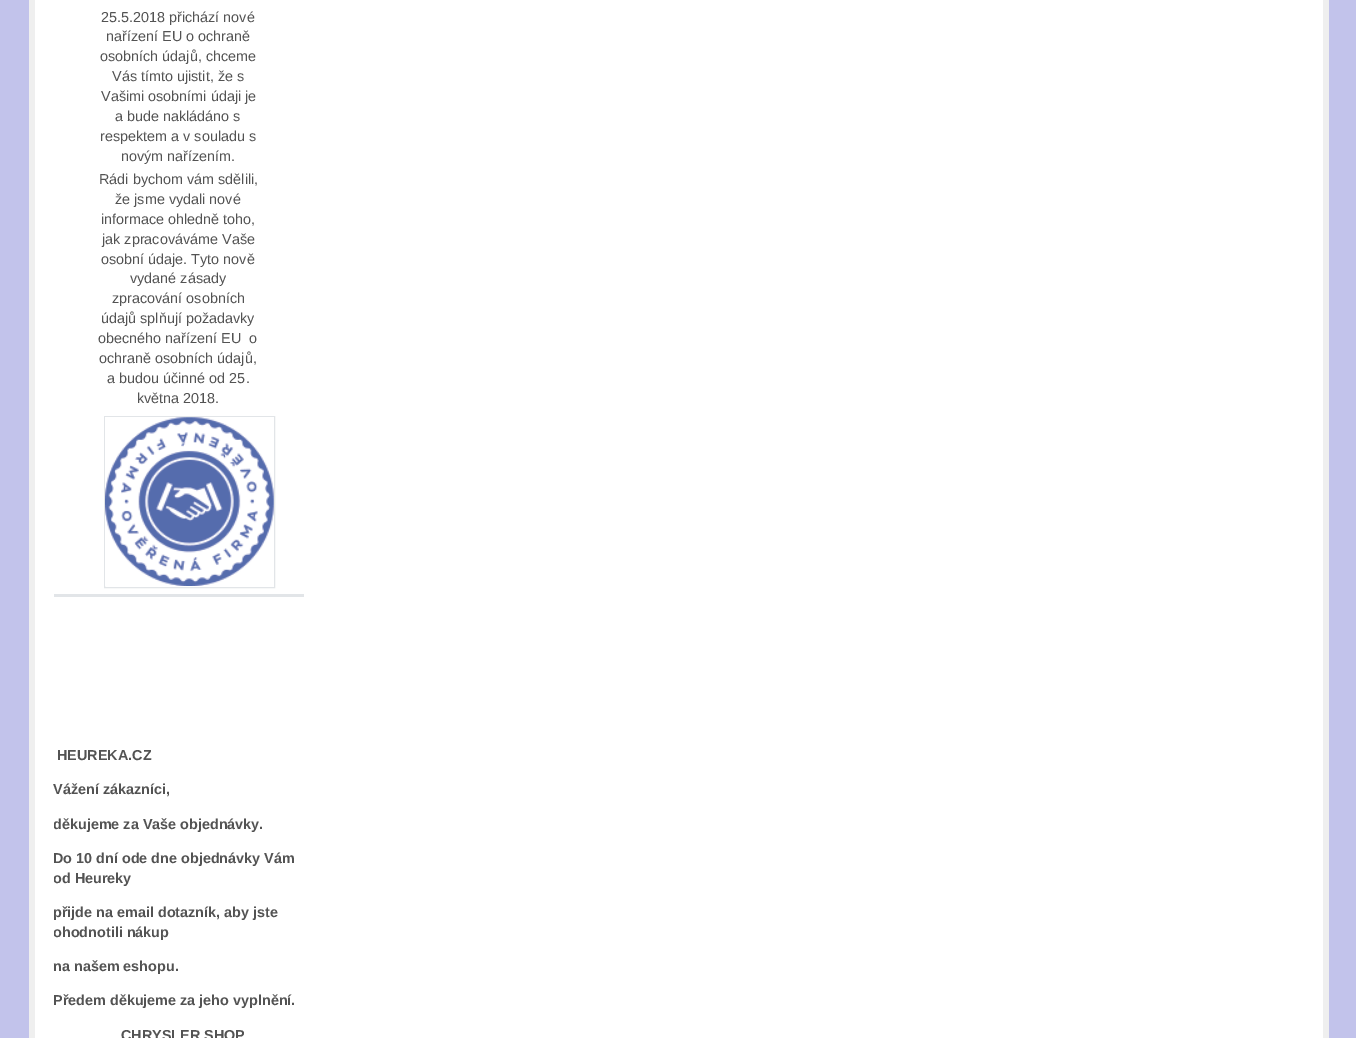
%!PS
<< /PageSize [1356 1038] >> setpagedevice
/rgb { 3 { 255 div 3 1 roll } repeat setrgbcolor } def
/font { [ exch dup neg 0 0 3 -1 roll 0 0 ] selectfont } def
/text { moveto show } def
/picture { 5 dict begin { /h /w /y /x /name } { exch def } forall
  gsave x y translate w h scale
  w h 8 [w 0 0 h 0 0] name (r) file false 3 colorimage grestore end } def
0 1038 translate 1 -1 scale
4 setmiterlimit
194 195 235 rgb
0 0 1356 1038 rectfill
255 255 255 rgb
35 0 1288 1038 rectfill
239 239 239 rgb
1323 0 6 1038 rectfill
29 0 6 1038 rectfill
226 229 232 rgb
54 594 250 3 rectfill
104.5 416.5 170 171 rectstroke
(img_01.rgb) 105 417 169 169 picture
/LiberationSans-Regular 14.4 font
83 83 83 rgb
(25.5.2018 přichází nové) 101 22 text
(nařízení EU o ochraně) 106 41 text
(osobních údajů, chceme) 100 61 text
(Vás tímto ujistit, že s) 112 81 text
(Vašimi osobními údaji je) 101 101 text
(a bude nakládáno s) 115 121 text
(respektem a v souladu s) 100 141 text
(novým nařízením.) 121 161 text
(Rádi bychom vám sdělili,) 99 184 text
(že jsme vydali nové) 115 204 text
(informace ohledně toho,) 101 224 text
(jak zpracováváme Vaše) 102 244 text
(osobní údaje. Tyto nově) 101 264 text
(vydané zásady) 130 283 text
(zpracování osobních) 112 303 text
(údajů splňují požadavky) 101 323 text
(obecného nařízení EU  o) 98 343 text
(ochraně osobních údajů,) 99 363 text
(a budou účinné od 25.) 107 383 text
(května 2018.) 137 403 text
/LiberationSans-Bold 14.4 font
(HEUREKA.CZ) 57 760 text
(Vážení zákazníci,) 53 794 text
gsave
54 609 250 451 rectclip
(děkujeme za Vaše objednávky.) 53 829 text
grestore
(Do 10 dní ode dne objednávky Vám) 53 863 text
gsave
54 609 250 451 rectclip
(od Heureky) 53 883 text
grestore
(přijde na email dotazník, aby jste) 53 917 text
gsave
54 609 250 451 rectclip
(ohodnotili nákup) 53 937 text
grestore
(na našem eshopu.) 53 971 text
(Předem děkujeme za jeho vyplnění.) 53 1005 text
(CHRYSLER SHOP) 121 1040 text
showpage
